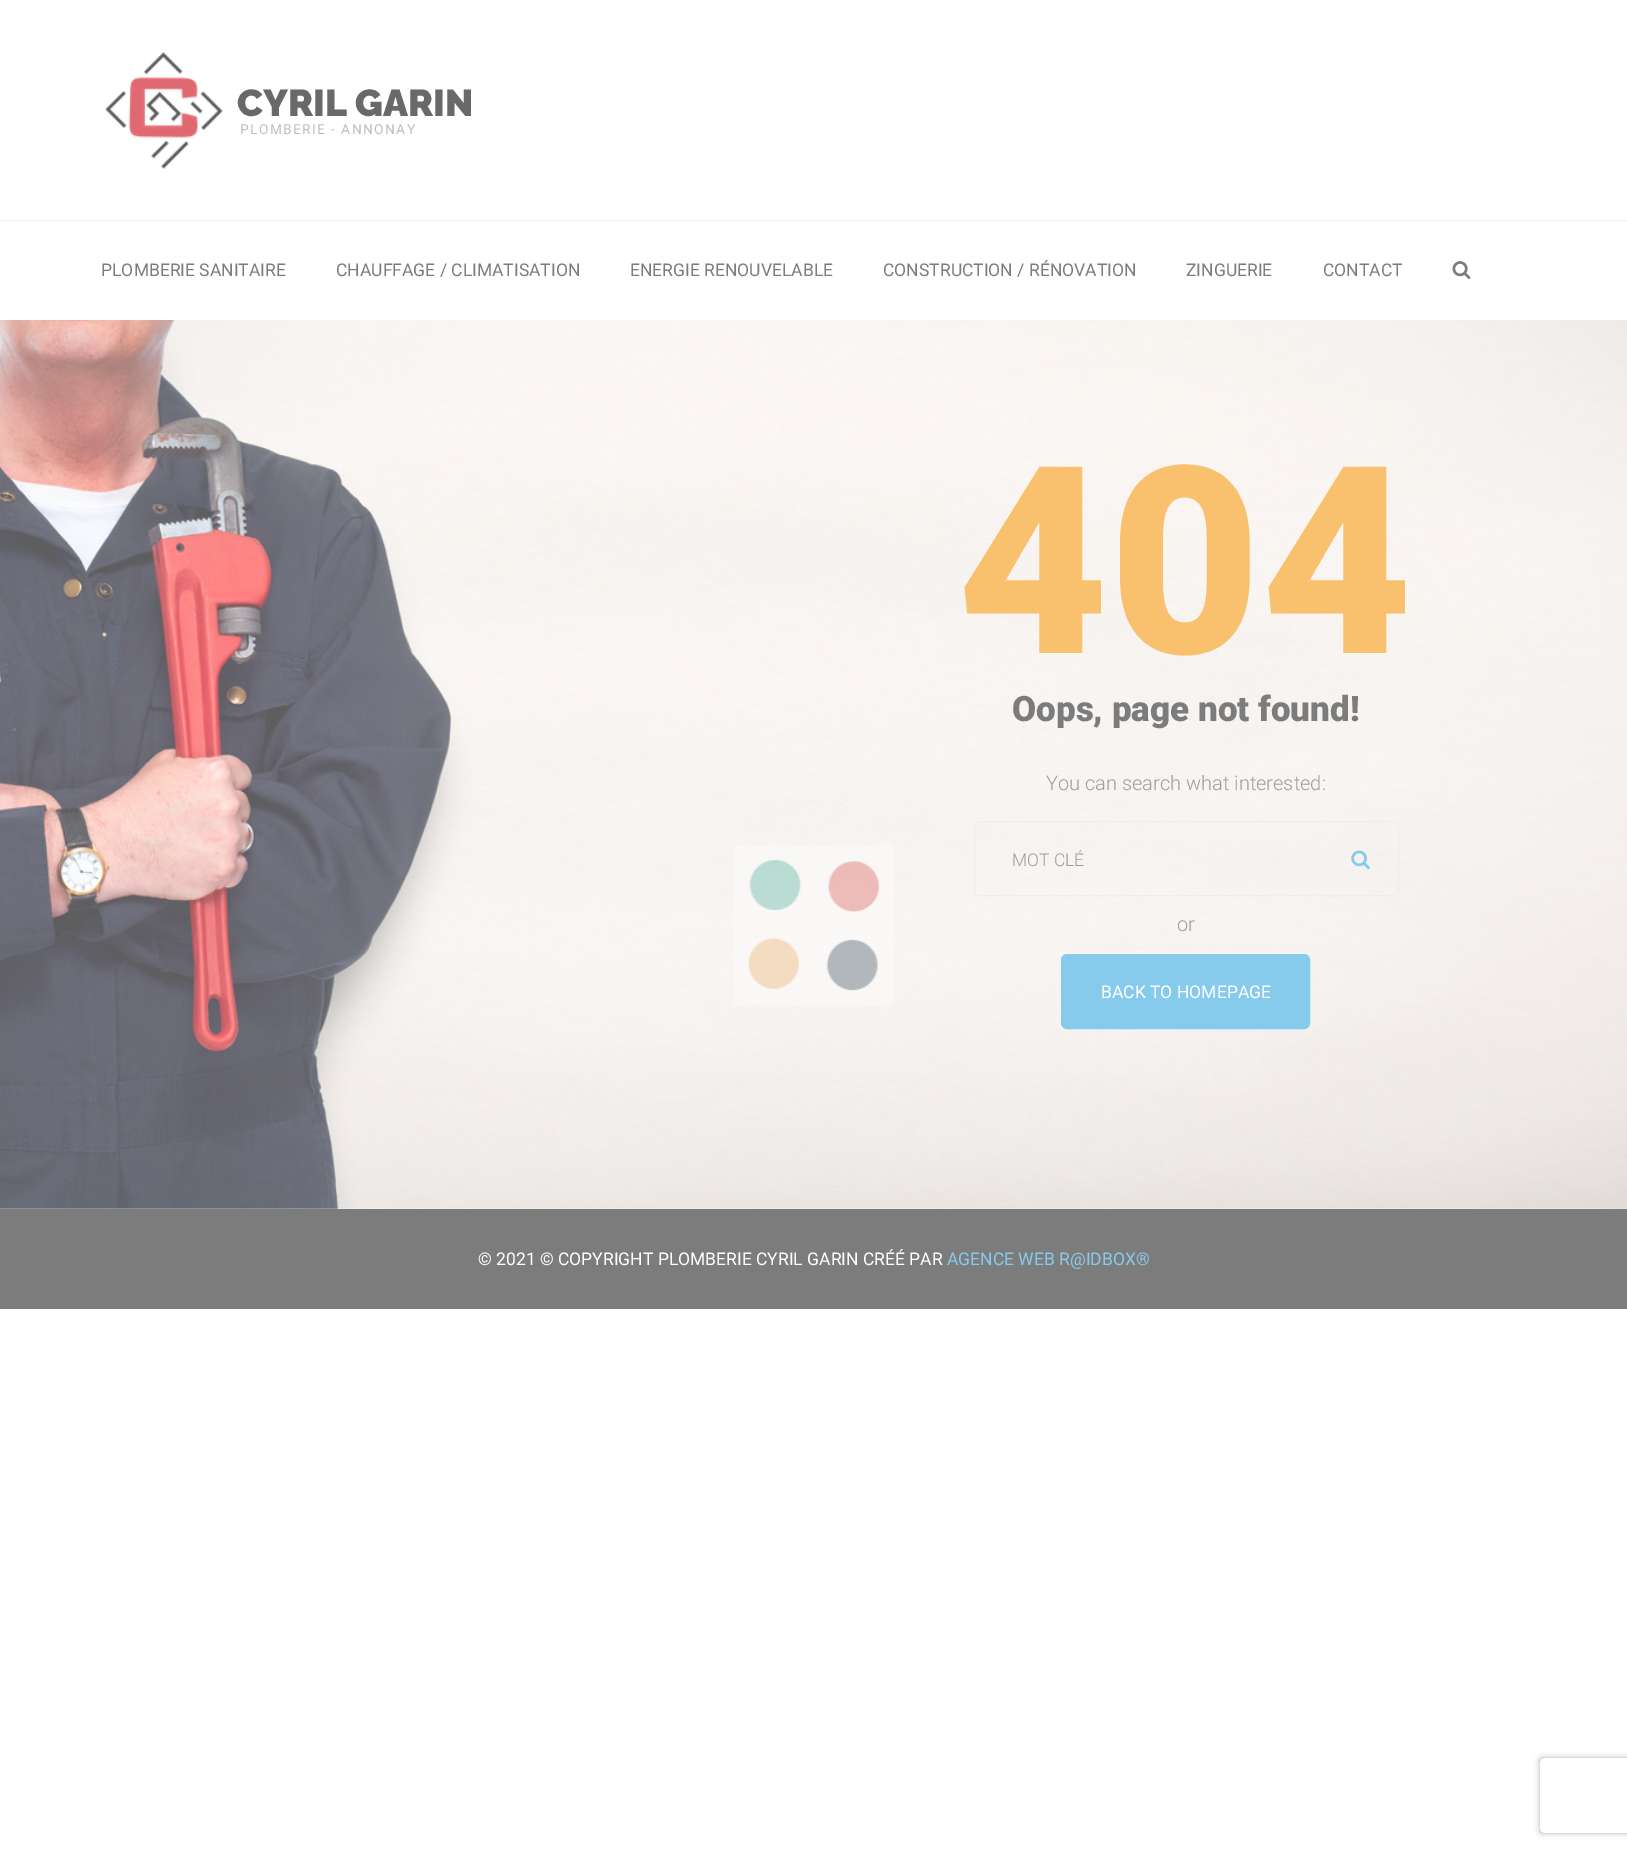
%!PS
<< /PageSize [1627 1849] /PageUsesTransparency true >> setpagedevice
/rgb { 3 { 255 div 3 1 roll } repeat setrgbcolor } def
/font { [ exch dup neg 0 0 3 -1 roll 0 0 ] selectfont } def
/text { moveto show } def
/alpha { dup .setfillconstantalpha .setstrokeconstantalpha } def
/roundrect { 5 dict begin { /r /h /w /y /x } { exch def } forall
  x r add y moveto x w add y 2 copy h add r arct x w add y h add x 1 index r arct
  x y h add x y r arct x y 2 copy exch w add exch r arct closepath end } def
/shadow { 12 dict begin { /a /b /q /h /w /y /x } { exch def } forall gsave /was 0 def
  9 -2 -9 { dup b mul 4 div /e exch def 1 sub .425 mul 2.718 exch exp 1 add a .99 .min exch div /now exch def
    1 1 now sub 1 was sub div sub alpha /was now def
    w h .min e 2 mul add 0 gt { x e sub y e sub w e 2 mul add h e 2 mul add
      q e add b .6 mul add w h .min 2 div e add .min 0 .max roundrect fill } if } for grestore end } def
/picture { 5 dict begin { /h /w /y /x /name } { exch def } forall
  gsave x y translate w h scale
  w h 8 [w 0 0 h 0 0] name (r) file false 3 colorimage grestore end } def
0 .pushpdf14devicefilter
0 1849 translate 1 -1 scale
4 setmiterlimit
255 255 255 rgb
0 0 1627 1849 rectfill
(img_01.rgb) 105 52 118 117 picture
238 238 238 rgb
0 220 1627 1 rectfill
(img_02.rgb) 1452 261 19 18 picture
(img_03.rgb) 0 320 1627 889 picture
974.5 821.5 424 74 5.5 roundrect stroke
(img_04.rgb) 1351 850 19 20 picture
135 203 236 rgb
1062.5 955.5 246 72 4.5 roundrect gsave fill grestore
3 setlinewidth
stroke
124 124 124 rgb
0 1209 1627 100 rectfill
(img_05.rgb) 734 845 160 160 picture
gsave
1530 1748 moveto 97 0 rlineto 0 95 rlineto -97 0 rlineto closepath 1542.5 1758 moveto 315 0 rlineto 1.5 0 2.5 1 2.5 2.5 rcurveto 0 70 rlineto 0 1.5 -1 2.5 -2.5 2.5 rcurveto -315 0 rlineto -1.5 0 -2.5 -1 -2.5 -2.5 rcurveto 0 -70 rlineto 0 -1.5 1 -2.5 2.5 -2.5 rcurveto closepath eoclip newpath
174 174 174 rgb
1540 1758 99 75 2.5 3 1 shadow
grestore
/Raleway-Black 37.5 font
105 105 105 rgb
(CYRIL GARIN) 237 116 text
/Roboto-Regular 13.75 font
189 189 189 rgb
240 134 moveto 1.4 0 (PLOMBERIE - ANNONAY) ashow
/Roboto-Regular 17.5 font
124 124 124 rgb
(PLOMBERIE SANITAIRE) 101 276 text
(CHAUFFAGE / CLIMATISATION) 336 276 text
(ENERGIE RENOUVELABLE) 630 276 text
(CONSTRUCTION / RÉNOVATION) 883 276 text
(ZINGUERIE) 1186 276 text
(CONTACT) 1323 276 text
/Roboto-Black 262 font
249 192 110 rgb
(404) 957 653 text
/Roboto-Black 35 font
124 124 124 rgb
(Oops, page not found!) 1012 721 text
/Roboto-Light 20 font
157 157 157 rgb
(You can search what interested:) 1046 790 text
/Roboto-Light 17.5 font
(MOT CLÉ) 1012 866 text
/Roboto-Light 20 font
(or) 1177 931 text
/Roboto-Regular 17.5 font
255 255 255 rgb
(BACK TO HOMEPAGE) 1101 998 text
(© 2021 © COPYRIGHT PLOMBERIE CYRIL GARIN CRÉÉ PAR) 478 1265 text
135 203 236 rgb
(AGENCE WEB R@IDBOX®) 947 1265 text
.poppdf14devicefilter showpage
